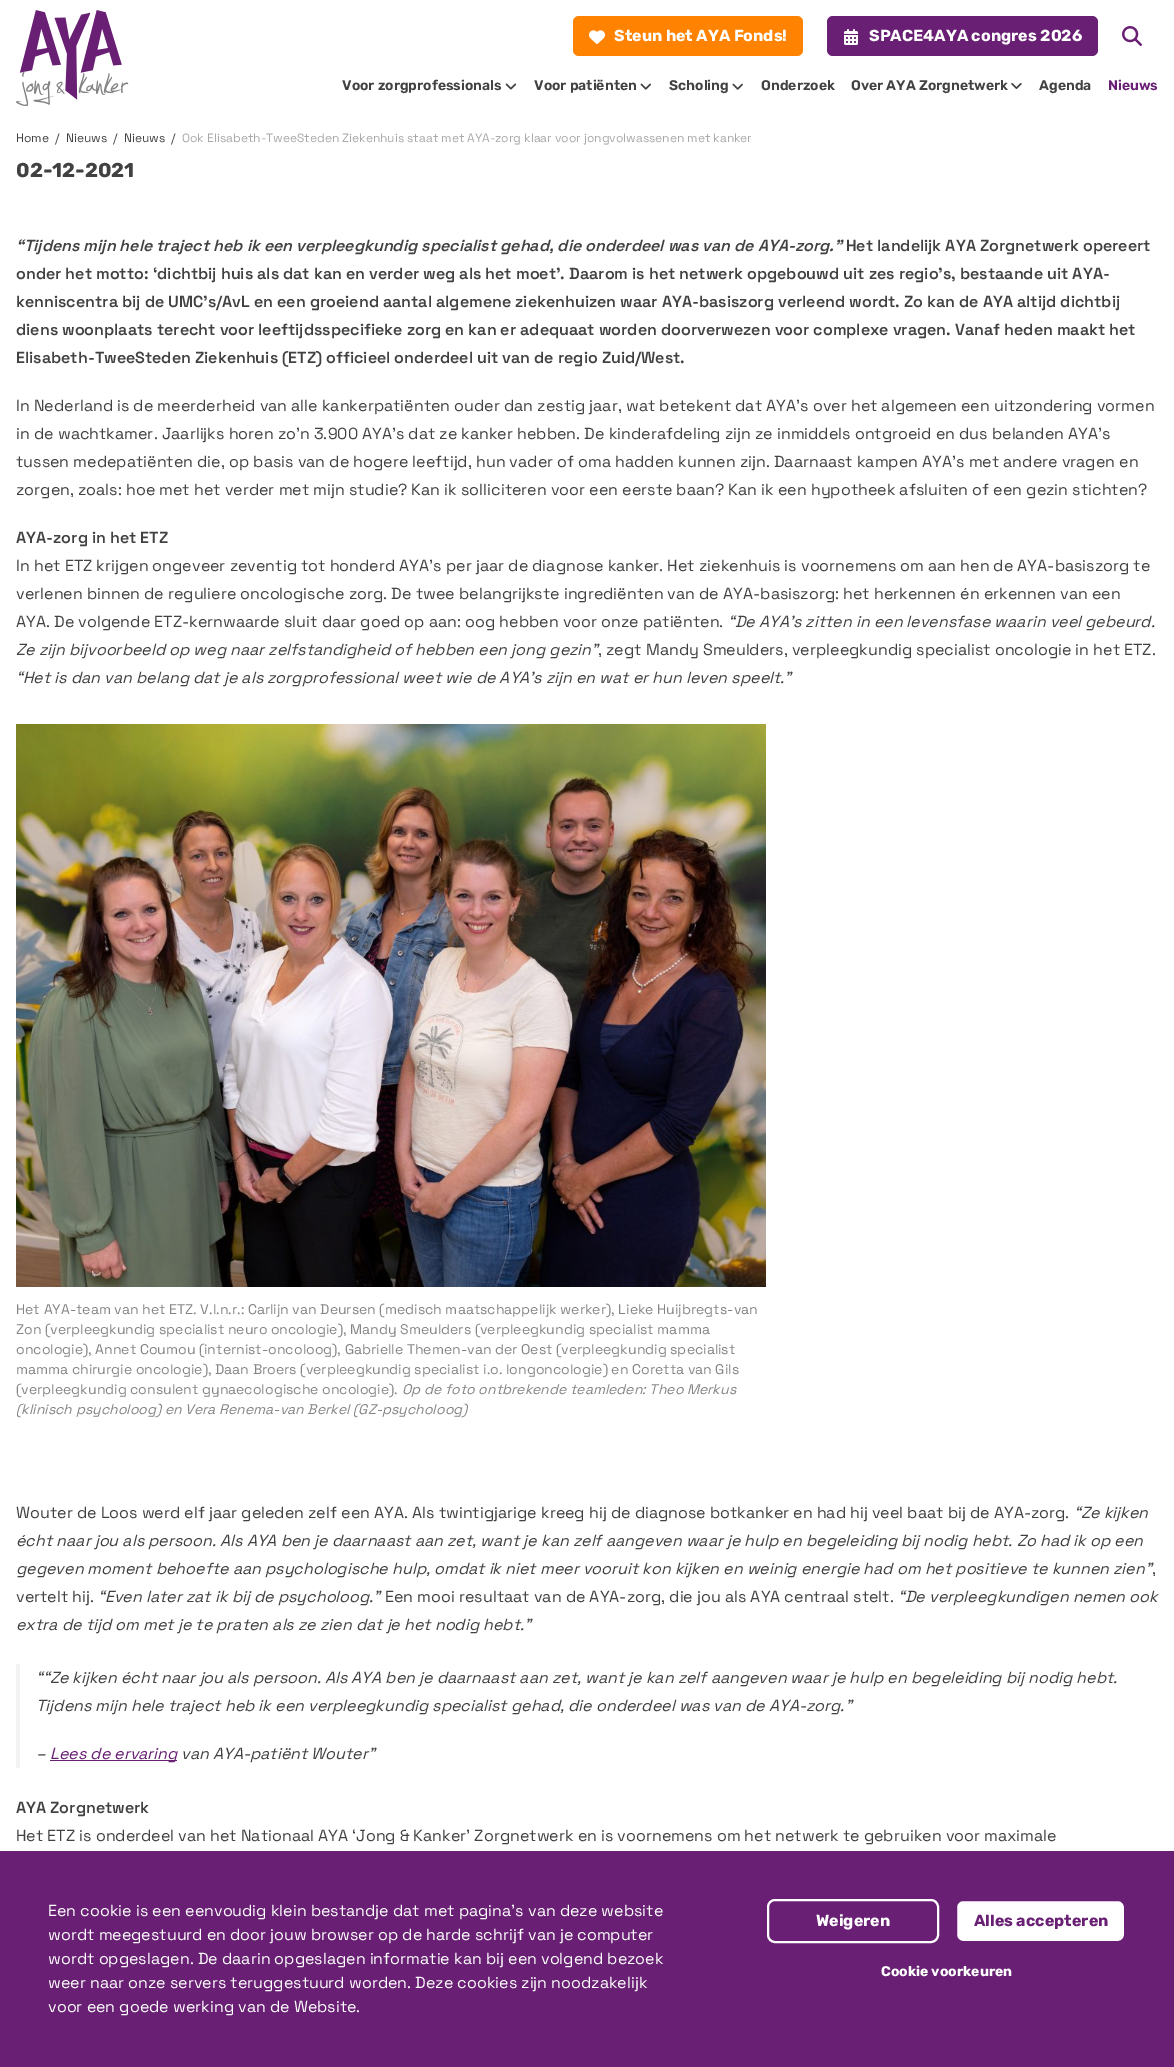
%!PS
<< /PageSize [1174 2067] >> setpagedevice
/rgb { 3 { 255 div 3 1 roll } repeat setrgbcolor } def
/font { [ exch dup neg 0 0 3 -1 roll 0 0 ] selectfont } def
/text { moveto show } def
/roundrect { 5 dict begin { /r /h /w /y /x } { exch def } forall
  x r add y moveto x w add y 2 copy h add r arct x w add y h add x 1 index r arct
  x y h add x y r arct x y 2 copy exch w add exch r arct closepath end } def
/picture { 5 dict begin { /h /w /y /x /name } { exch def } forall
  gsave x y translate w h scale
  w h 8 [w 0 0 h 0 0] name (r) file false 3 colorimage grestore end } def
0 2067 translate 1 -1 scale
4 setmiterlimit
255 255 255 rgb
0 0 1174 2067 rectfill
(img_01.rgb) 16 10 113 96 picture
255 131 0 rgb
573 16 230 40 6 roundrect fill
(img_02.rgb) 589 30 16 14 picture
105 31 115 rgb
827 16 271 40 6 roundrect fill
(img_03.rgb) 844 29 14 16 picture
(img_04.rgb) 1122 26 20 20 picture
(img_05.rgb) 505 83 12 7 picture
(img_06.rgb) 640 83 11 7 picture
(img_07.rgb) 732 83 11 7 picture
(img_08.rgb) 1011 83 11 6 picture
(img_09.rgb) 16 724 750 563 picture
243 243 243 rgb
16 1664 4 104 rectfill
105 31 115 rgb
50 1760 127 1 rectfill
0 1851 1174 216 rectfill
255 255 255 rgb
2 setlinewidth
768 1900 170 42 7 roundrect stroke
956 1900 169 42 7 roundrect gsave fill grestore
105 31 115 rgb
stroke
/Rubik-Light 16 font
255 255 255 rgb
(Steun het AYA Fonds!) 614 41 text
(SPACE4AYA congres 2026) 869 41 text
/Rubik-SemiBold 14 font
65 65 65 rgb
(Voor zorgprofessionals) 342 90 text
(Voor patiënten) 534 90 text
(Scholing) 669 90 text
(Onderzoek) 761 90 text
(Over AYA Zorgnetwerk) 851 90 text
(Agenda) 1039 90 text
105 31 115 rgb
(Nieuws) 1108 90 text
/SpaceGrotesk-Light 12 font
65 65 65 rgb
(Home) 16 142 text
(/) 55 142 text
(Nieuws) 66 142 text
(/) 113 142 text
(Nieuws) 124 142 text
(/) 171 142 text
170 169 169 rgb
(Ook Elisabeth-TweeSteden Ziekenhuis staat met AYA-zorg klaar voor jongvolwassenen met kanker) 182 142 text
/Rubik-Light 20 font
65 65 65 rgb
(02-12-2021) 16 177 text
/SpaceGrotesk-SemiBoldItalic 16 font
(“Tijdens mijn hele traject heb ik een verpleegkundig specialist gehad, die onderdeel was van de AYA-zorg.”) 16 251 text
/SpaceGrotesk-SemiBold 16 font
(Het landelijk AYA Zorgnetwerk opereert) 846 251 text
(onder het motto: ‘dichtbij huis als dat kan en verder weg als het moet’. Daarom is het netwerk opgebouwd uit zes regio’s, bestaande uit AYA-) 16 279 text
(kenniscentra bij de UMC’s/AvL en een groeiend aantal algemene ziekenhuizen waar AYA-basiszorg verleend wordt. Zo kan de AYA altijd dichtbij) 16 307 text
(diens woonplaats terecht voor leeftijdsspecifieke zorg en kan er adequaat worden doorverwezen voor complexe vragen. Vanaf heden maakt het) 16 335 text
(Elisabeth-TweeSteden Ziekenhuis \(ETZ\) officieel onderdeel uit van de regio Zuid/West.) 16 363 text
/SpaceGrotesk-Light 16 font
(In Nederland is de meerderheid van alle kankerpatiënten ouder dan zestig jaar, wat betekent dat AYA’s over het algemeen een uitzondering vormen) 16 411 text
(in de wachtkamer. Jaarlijks horen zo’n 3.900 AYA’s dat ze kanker hebben. De kinderafdeling zijn ze inmiddels ontgroeid en dus belanden AYA’s) 16 439 text
(tussen medepatiënten die, op basis van de hogere leeftijd, hun vader of oma hadden kunnen zijn. Daarnaast kampen AYA’s met andere vragen en) 16 467 text
(zorgen, zoals: hoe met het verder met mijn studie? Kan ik solliciteren voor een eerste baan? Kan ik een hypotheek afsluiten of een gezin stichten?) 16 495 text
/SpaceGrotesk-SemiBold 16 font
(AYA-zorg in het ETZ) 16 543 text
/SpaceGrotesk-Light 16 font
(In het ETZ krijgen ongeveer zeventig tot honderd AYA’s per jaar de diagnose kanker. Het ziekenhuis is voornemens om aan hen de AYA-basiszorg te) 16 571 text
(verlenen binnen de reguliere oncologische zorg. De twee belangrijkste ingrediënten van de AYA-basiszorg: het herkennen én erkennen van een) 16 599 text
(AYA. De volgende ETZ-kernwaarde sluit daar goed op aan: oog hebben voor onze patiënten.) 16 627 text
/SpaceGrotesk-LightItalic 16 font
(“De AYA’s zitten in een levensfase waarin veel gebeurd.) 728 627 text
(Ze zijn bijvoorbeeld op weg naar zelfstandigheid of hebben een jong gezin”) 16 655 text
/SpaceGrotesk-Light 16 font
(, zegt Mandy Smeulders, verpleegkundig specialist oncologie in het ETZ.) 598 655 text
/SpaceGrotesk-LightItalic 16 font
(“Het is dan van belang dat je als zorgprofessional weet wie de AYA’s zijn en wat er hun leven speelt.”) 16 683 text
/SpaceGrotesk-Light 14 font
133 132 132 rgb
(Het AYA-team van het ETZ. V.l.n.r.: Carlijn van Deursen \(medisch maatschappelijk werker\), Lieke Huijbregts-van) 16 1314 text
(Zon \(verpleegkundig specialist neuro oncologie\), Mandy Smeulders \(verpleegkundig specialist mamma) 16 1334 text
(oncologie\), Annet Coumou \(internist-oncoloog\), Gabrielle Themen-van der Oest \(verpleegkundig specialist) 16 1354 text
(mamma chirurgie oncologie\), Daan Broers \(verpleegkundig specialist i.o. longoncologie\) en Coretta van Gils) 16 1374 text
(\(verpleegkundig consulent gynaecologische oncologie\).) 16 1394 text
/SpaceGrotesk-LightItalic 14 font
(Op de foto ontbrekende teamleden: Theo Merkus) 402 1394 text
(\(klinisch psycholoog\) en Vera Renema-van Berkel \(GZ-psycholoog\)) 16 1414 text
/SpaceGrotesk-Light 16 font
65 65 65 rgb
(Wouter de Loos werd elf jaar geleden zelf een AYA. Als twintigjarige kreeg hij de diagnose botkanker en had hij veel baat bij de AYA-zorg.) 16 1518 text
/SpaceGrotesk-LightItalic 16 font
(“Ze kijken) 1074 1518 text
(écht naar jou als persoon. Als AYA ben je daarnaast aan zet, want je kan zelf aangeven waar je hulp en begeleiding bij nodig hebt. Zo had ik op een) 16 1546 text
(gegeven moment behoefte aan psychologische hulp, omdat ik niet meer vooruit kon kijken en weinig energie had om het positieve te kunnen zien”) 16 1574 text
/SpaceGrotesk-Light 16 font
(,) 1152 1574 text
(vertelt hij.) 16 1602 text
/SpaceGrotesk-LightItalic 16 font
(“Even later zat ik bij de psycholoog.”) 98 1602 text
/SpaceGrotesk-Light 16 font
(Een mooi resultaat van de AYA-zorg, die jou als AYA centraal stelt.) 385 1602 text
/SpaceGrotesk-LightItalic 16 font
(“De verpleegkundigen nemen ook) 898 1602 text
(extra de tijd om met je te praten als ze zien dat je het nodig hebt.”) 16 1630 text
(““Ze kijken écht naar jou als persoon. Als AYA ben je daarnaast aan zet, want je kan zelf aangeven waar je hulp en begeleiding bij nodig hebt.) 36 1683 text
(Tijdens mijn hele traject heb ik een verpleegkundig specialist gehad, die onderdeel was van de AYA-zorg.”) 36 1711 text
(–) 36 1759 text
105 31 115 rgb
(Lees de ervaring) 50 1759 text
65 65 65 rgb
(van AYA-patiënt Wouter”) 181 1759 text
/SpaceGrotesk-SemiBold 16 font
(AYA Zorgnetwerk) 16 1813 text
/SpaceGrotesk-Light 16 font
(Het ETZ is onderdeel van het Nationaal AYA ‘Jong & Kanker’ Zorgnetwerk en is voornemens om het netwerk te gebruiken voor maximale) 16 1841 text
255 255 255 rgb
(Een cookie is een eenvoudig klein bestandje dat met pagina's van deze website) 48 1916 text
(wordt meegestuurd en door jouw browser op de harde schrijf van je computer) 48 1940 text
(wordt opgeslagen. De daarin opgeslagen informatie kan bij een volgend bezoek) 48 1964 text
(weer naar onze servers teruggestuurd worden. Deze cookies zijn noodzakelijk) 48 1988 text
(voor een goede werking van de Website.) 48 2012 text
/Rubik-Light 16 font
(Weigeren) 816 1926 text
105 31 115 rgb
(Alles accepteren) 974 1926 text
/Rubik-Light 14 font
255 255 255 rgb
(Cookie voorkeuren) 881 1976 text
showpage
